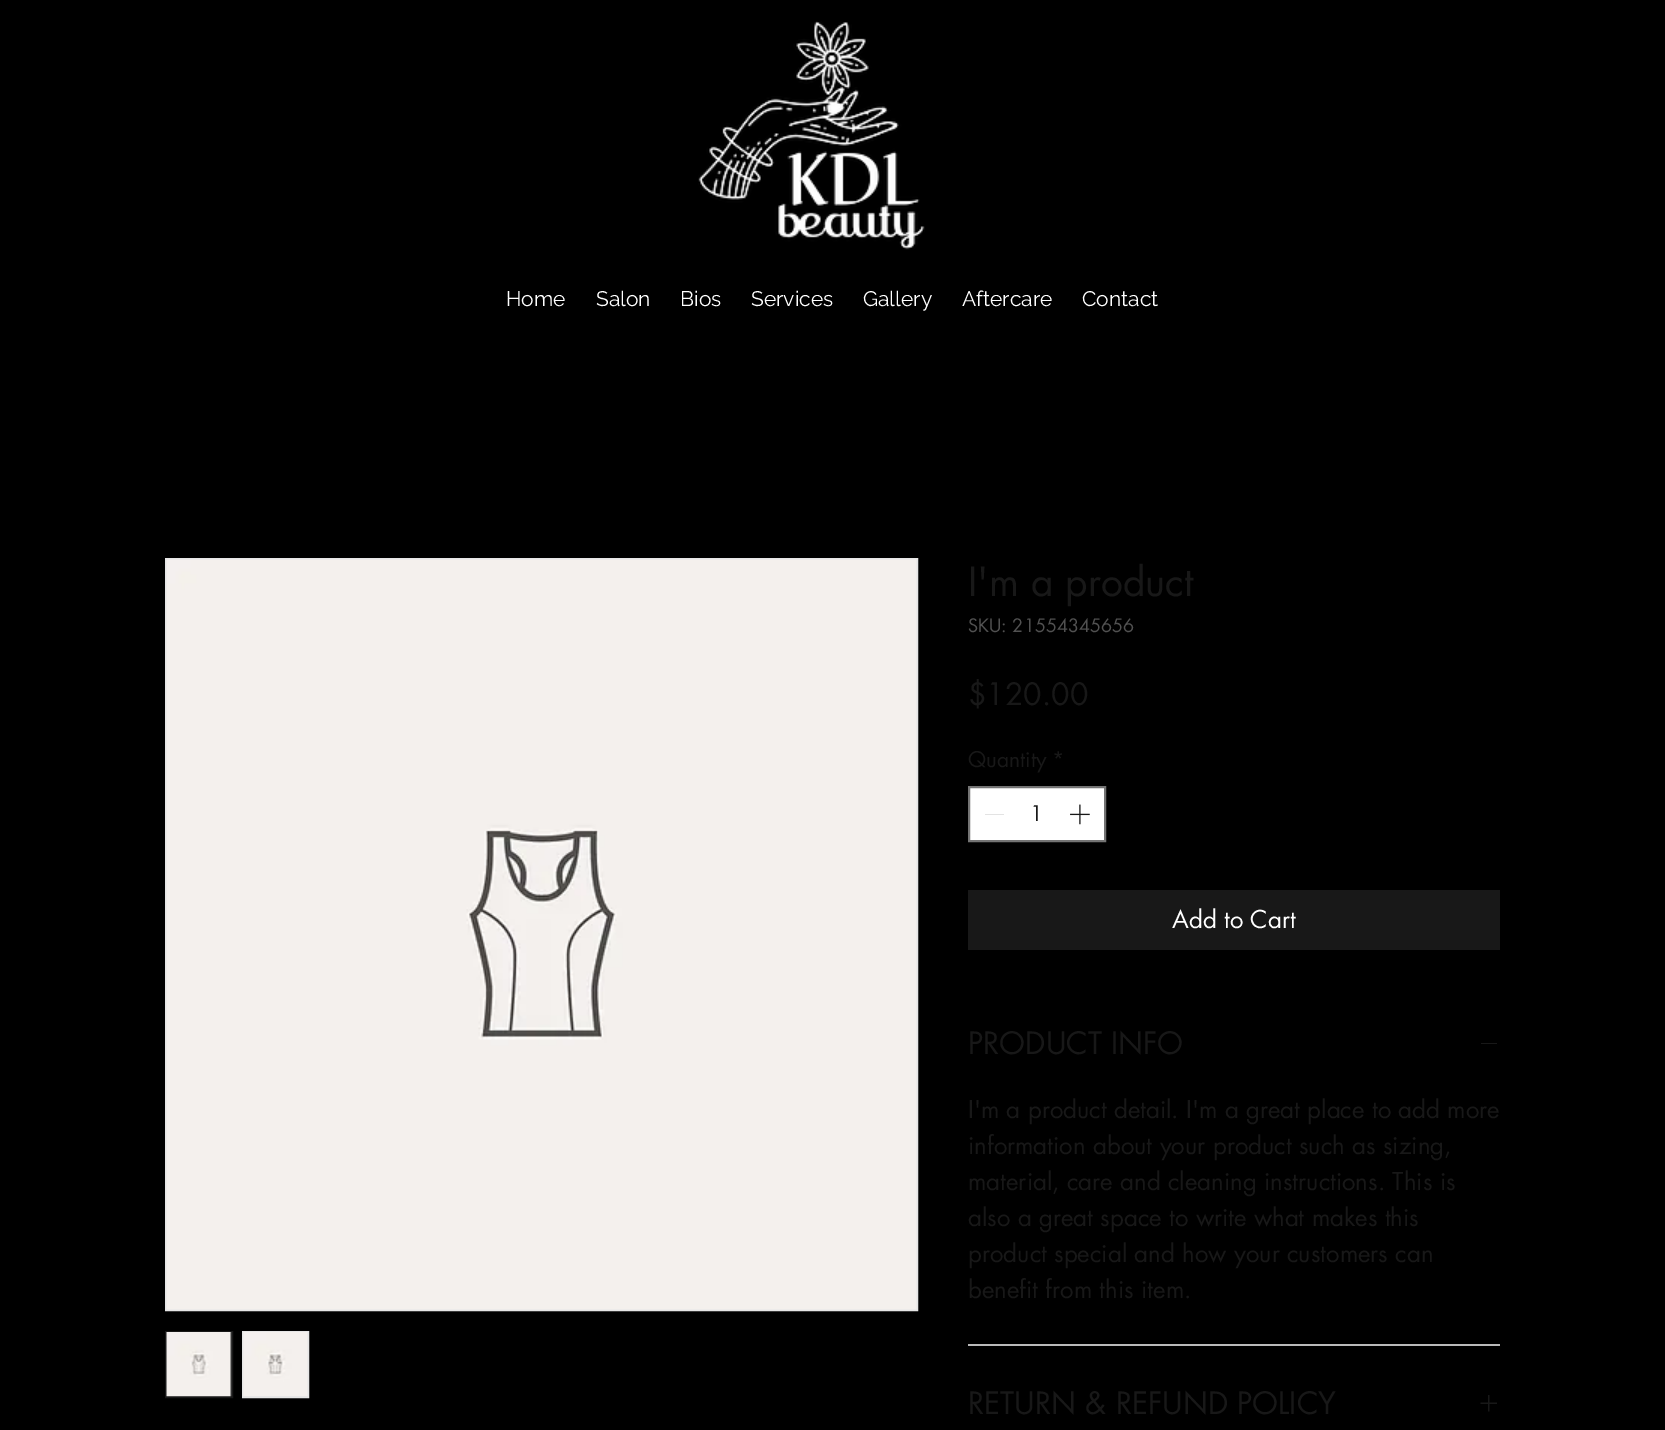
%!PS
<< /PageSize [1665 1430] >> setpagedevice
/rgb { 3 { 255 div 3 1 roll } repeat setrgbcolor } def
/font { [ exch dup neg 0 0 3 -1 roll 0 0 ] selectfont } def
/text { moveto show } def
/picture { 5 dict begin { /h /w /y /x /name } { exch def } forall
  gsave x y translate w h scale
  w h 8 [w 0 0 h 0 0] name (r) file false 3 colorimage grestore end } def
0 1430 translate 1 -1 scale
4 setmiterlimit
0 0 0 rgb
0 0 1665 1430 rectfill
(img_01.rgb) 698 21 227 229 picture
230 230 230 rgb
2 setlinewidth
166 559 751 751 rectstroke
(img_02.rgb) 166 559 751 751 picture
24 24 24 rgb
166 1332 66 65 rectstroke
(img_03.rgb) 166 1332 66 65 picture
230 230 230 rgb
243 1332 65 65 rectstroke
(img_04.rgb) 243 1332 65 64 picture
255 255 255 rgb
969 787 moveto 136 0 rlineto 0 54 rlineto -136 0 rlineto closepath gsave fill grestore
116 116 116 rgb
stroke
227 227 227 rgb
985 814 19 1 rectfill
(img_05.rgb) 1070 804 20 21 picture
24 24 24 rgb
968 890 532 60 rectfill
185 185 185 rgb
968 1344 532 2 rectfill
24 24 24 rgb
1481 1043 16 1 rectfill
(img_06.rgb) 1480 1395 17 17 picture
/Raleway-Regular 21 font
255 255 255 rgb
(Home) 506 306 text
(Salon) 596 306 text
(Bios) 680 306 text
(Services) 751 306 text
(Gallery) 863 306 text
(Aftercare) 962 306 text
(Contact) 1082 306 text
/futura-Regular 39 font
24 24 24 rgb
(I'm a product) 968 596 text
/futura-Regular 18 font
81 81 81 rgb
(SKU: 21554345656) 968 632 text
/futura-Regular 30 font
24 24 24 rgb
($120.00) 968 705 text
/futura-Regular 21 font
(Quantity) 968 767 text
(*) 1052 767 text
(1) 1030 821 text
/futura-Regular 24 font
255 255 255 rgb
(Add to Cart) 1172 928 text
/futura-Regular 30 font
24 24 24 rgb
(PRODUCT INFO) 968 1054 text
/futura-Regular 24 font
(I'm a product detail. I'm a great place to add more) 968 1118 text
(information about your product such as sizing,) 968 1154 text
(material, care and cleaning instructions. This is) 968 1190 text
(also a great space to write what makes this) 968 1226 text
(product special and how your customers can) 968 1262 text
(benefit from this item.) 968 1298 text
/futura-Regular 30 font
(RETURN & REFUND POLICY) 968 1414 text
showpage
